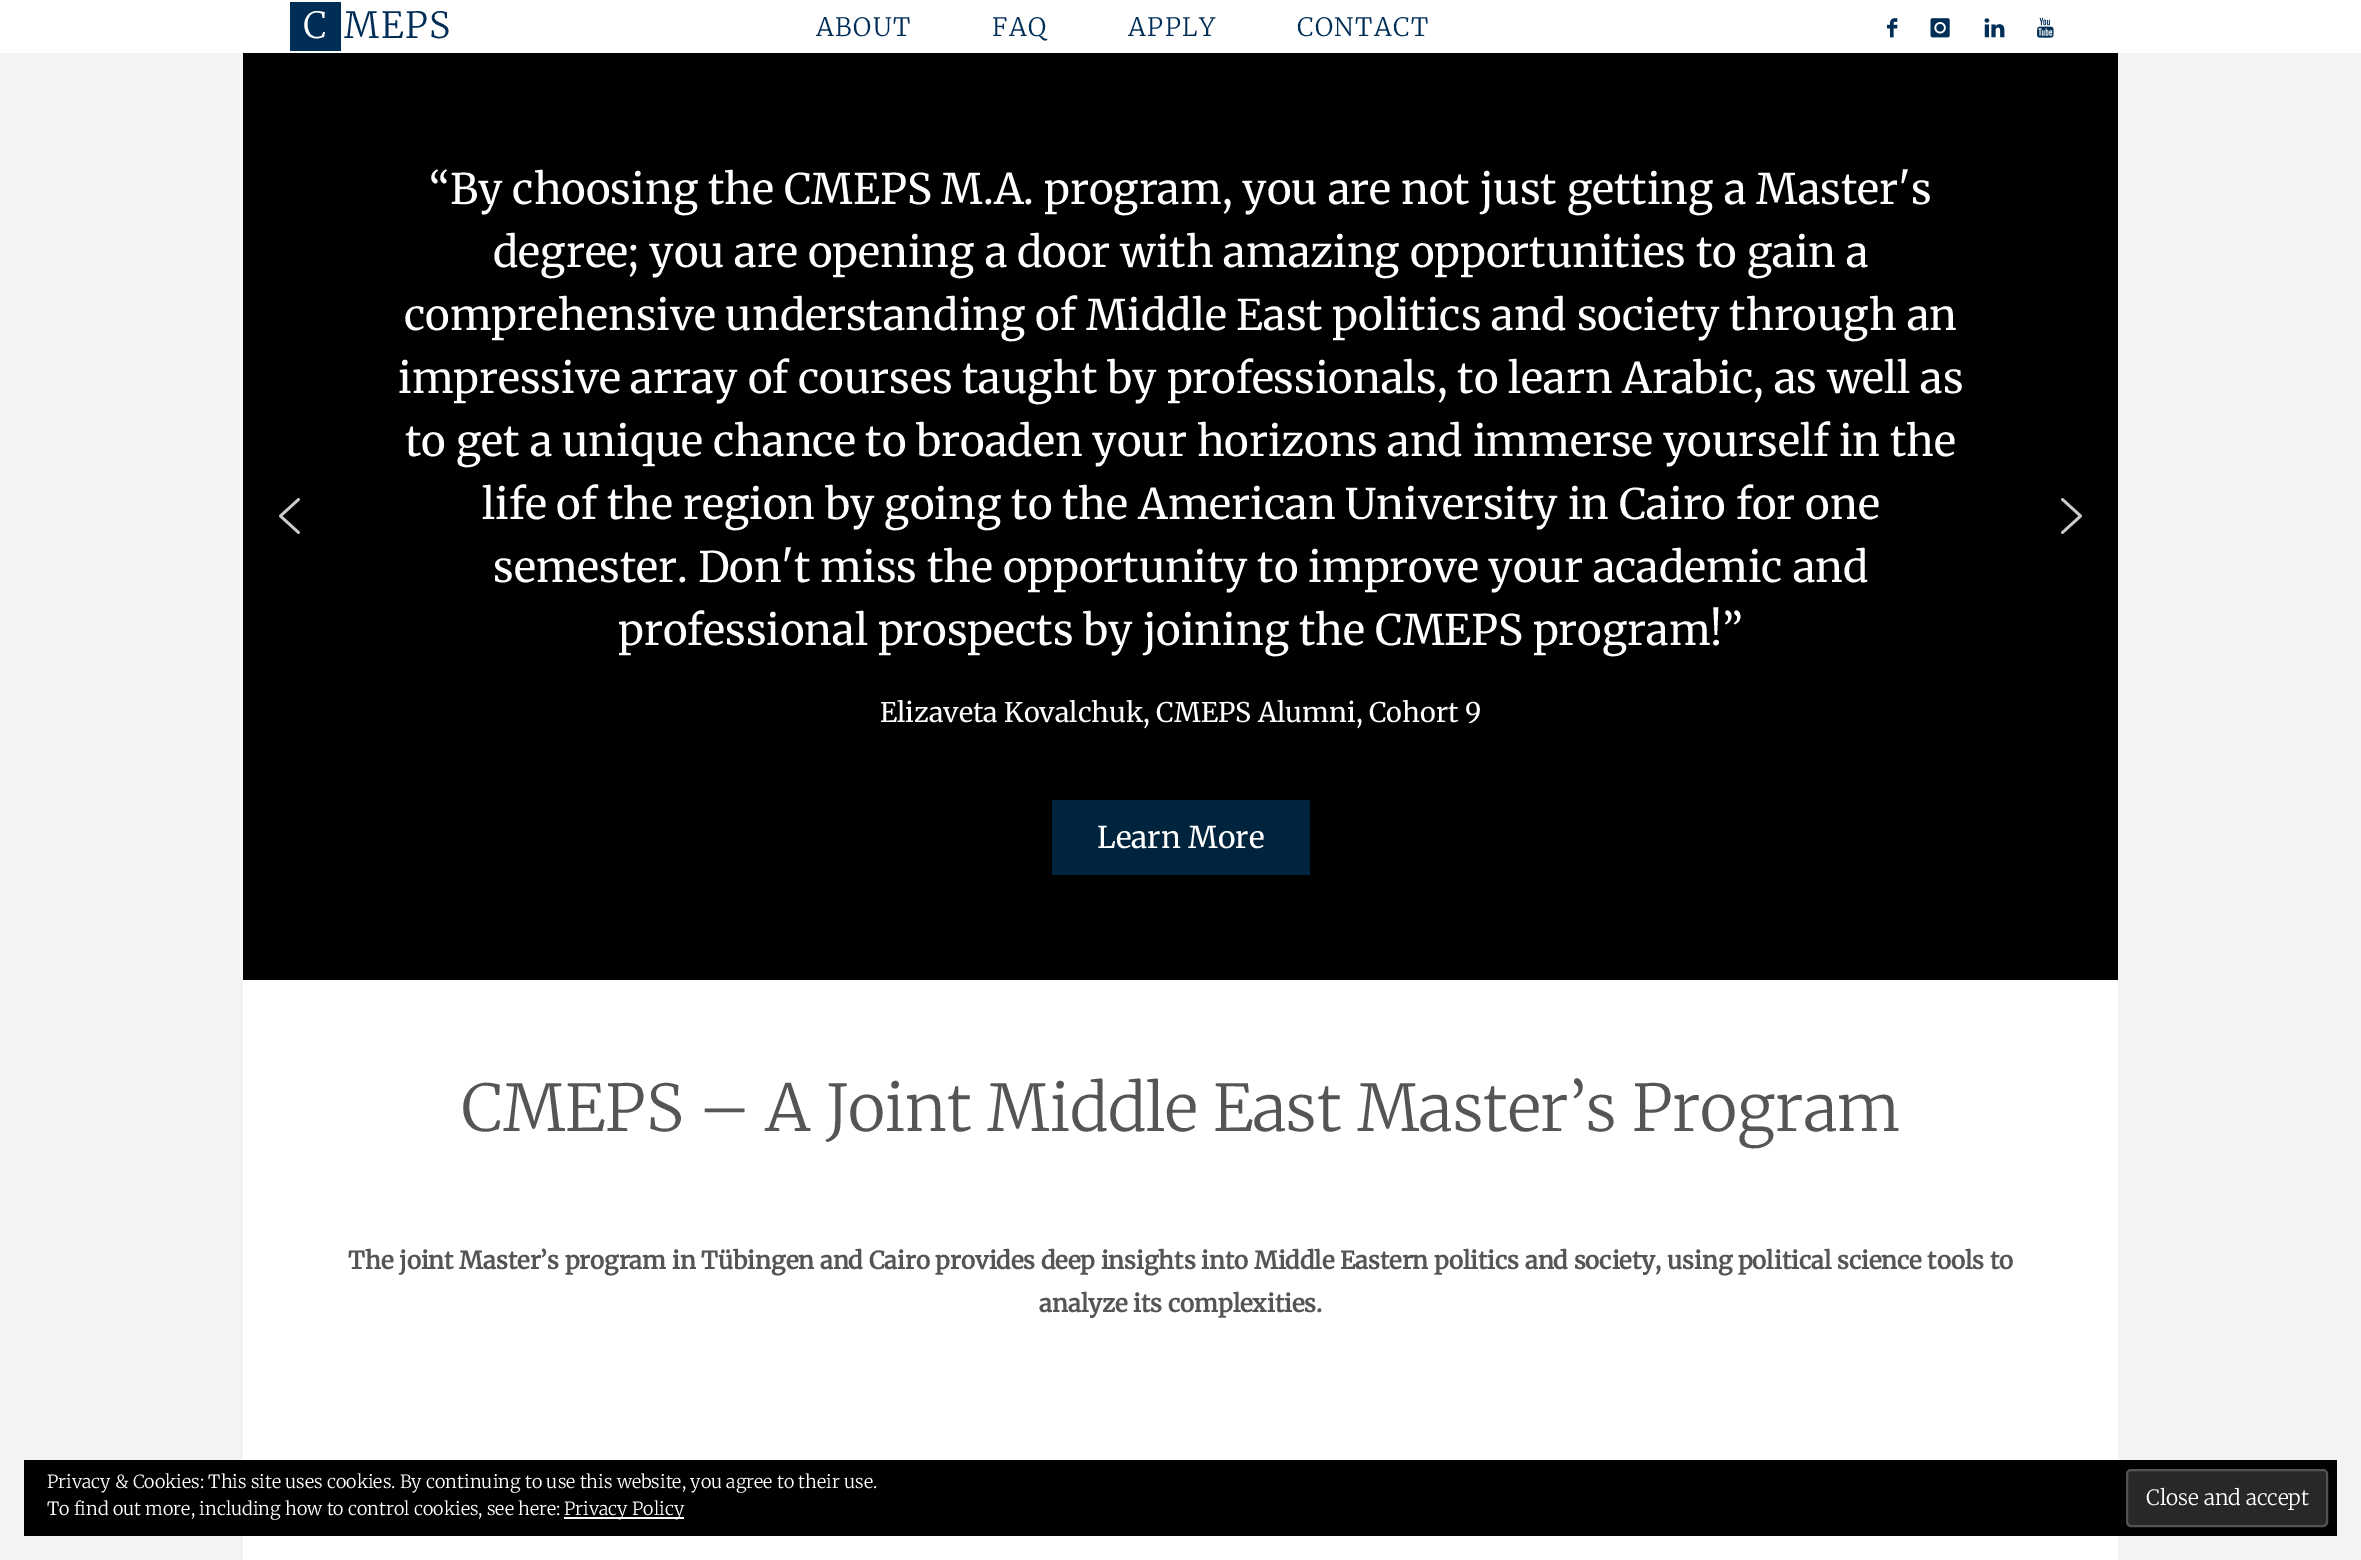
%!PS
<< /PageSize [2361 1560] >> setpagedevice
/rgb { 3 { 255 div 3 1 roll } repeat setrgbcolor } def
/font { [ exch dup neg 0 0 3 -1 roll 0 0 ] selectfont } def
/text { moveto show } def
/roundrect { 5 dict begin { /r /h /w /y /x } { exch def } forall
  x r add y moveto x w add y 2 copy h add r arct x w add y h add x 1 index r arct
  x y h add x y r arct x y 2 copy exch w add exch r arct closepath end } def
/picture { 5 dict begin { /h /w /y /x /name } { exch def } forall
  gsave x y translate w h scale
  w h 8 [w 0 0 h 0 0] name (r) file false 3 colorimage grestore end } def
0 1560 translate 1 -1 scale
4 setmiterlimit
243 243 243 rgb
0 0 2361 1560 rectfill
255 255 255 rgb
0 0 2361 53 rectfill
0 46 87 rgb
290 2 51 49 rectfill
(img_01.rgb) 1887 18 11 20 picture
(img_02.rgb) 1930 18 20 20 picture
(img_03.rgb) 1984 18 21 20 picture
(img_04.rgb) 2037 17 17 21 picture
0 0 0 rgb
243 53 1875 927 rectfill
(img_05.rgb) 279 498 21 36 picture
0 36 62 rgb
1052 800 258 75 rectfill
(img_06.rgb) 2061 498 21 36 picture
255 255 255 rgb
243 980 1875 580 rectfill
0 0 0 rgb
24 1460 2313 76 rectfill
255 255 255 rgb
564 1517 120 2 rectfill
40 40 40 rgb
2127 1470 200 56 4 roundrect gsave fill grestore
83 83 83 rgb
2 setlinewidth
stroke
/Merriweather-Light 36 font
255 255 255 rgb
(C) 303 38 text
0 46 87 rgb
(M) 344 38 text
(E) 381 38 text
(P) 405 38 text
(S) 429 38 text
/Merriweather-Light 25.25 font
816 36 moveto 1.5 0 (ABOUT) ashow
992 36 moveto 1.5 0 (FAQ) ashow
1128 36 moveto 1.5 0 (APPLY) ashow
1297 36 moveto 1.5 0 (CONTACT) ashow
/Merriweather-Regular 42 font
255 255 255 rgb
(“By choosing the CMEPS M.A. program, you are not just getting a Master's) 429 204 text
(degree; you are opening a door with amazing opportunities to gain a) 493 267 text
(comprehensive understanding of Middle East politics and society through an) 404 330 text
(impressive array of courses taught by professionals, to learn Arabic, as well as) 398 393 text
(to get a unique chance to broaden your horizons and immerse yourself in the) 405 456 text
(life of the region by going to the American University in Cairo for one) 482 519 text
(semester. Don't miss the opportunity to improve your academic and) 493 582 text
(professional prospects by joining the CMEPS program!”) 618 645 text
/Merriweather-Regular 27 font
(Elizaveta Kovalchuk, CMEPS Alumni, Cohort 9) 880 722 text
/Merriweather-Regular 30 font
(Learn More) 1097 848 text
/Merriweather-Light 64.25 font
85 85 85 rgb
(CMEPS – A Joint Middle East Master’s Program) 461 1131 text
/Merriweather-Bold 24 font
(The joint Master’s program in Tübingen and Cairo provides deep insights into Middle Eastern politics and society, using political science tools to) 348 1269 text
(analyze its complexities.) 1039 1312 text
/Merriweather-Light 18 font
255 255 255 rgb
(Privacy & Cookies: This site uses cookies. By continuing to use this website, you agree to their use.) 47 1488 text
(To find out more, including how to control cookies, see here:) 47 1515 text
(Privacy Policy) 564 1515 text
/Merriweather-Light 21 font
(Close and accept) 2146 1505 text
showpage
